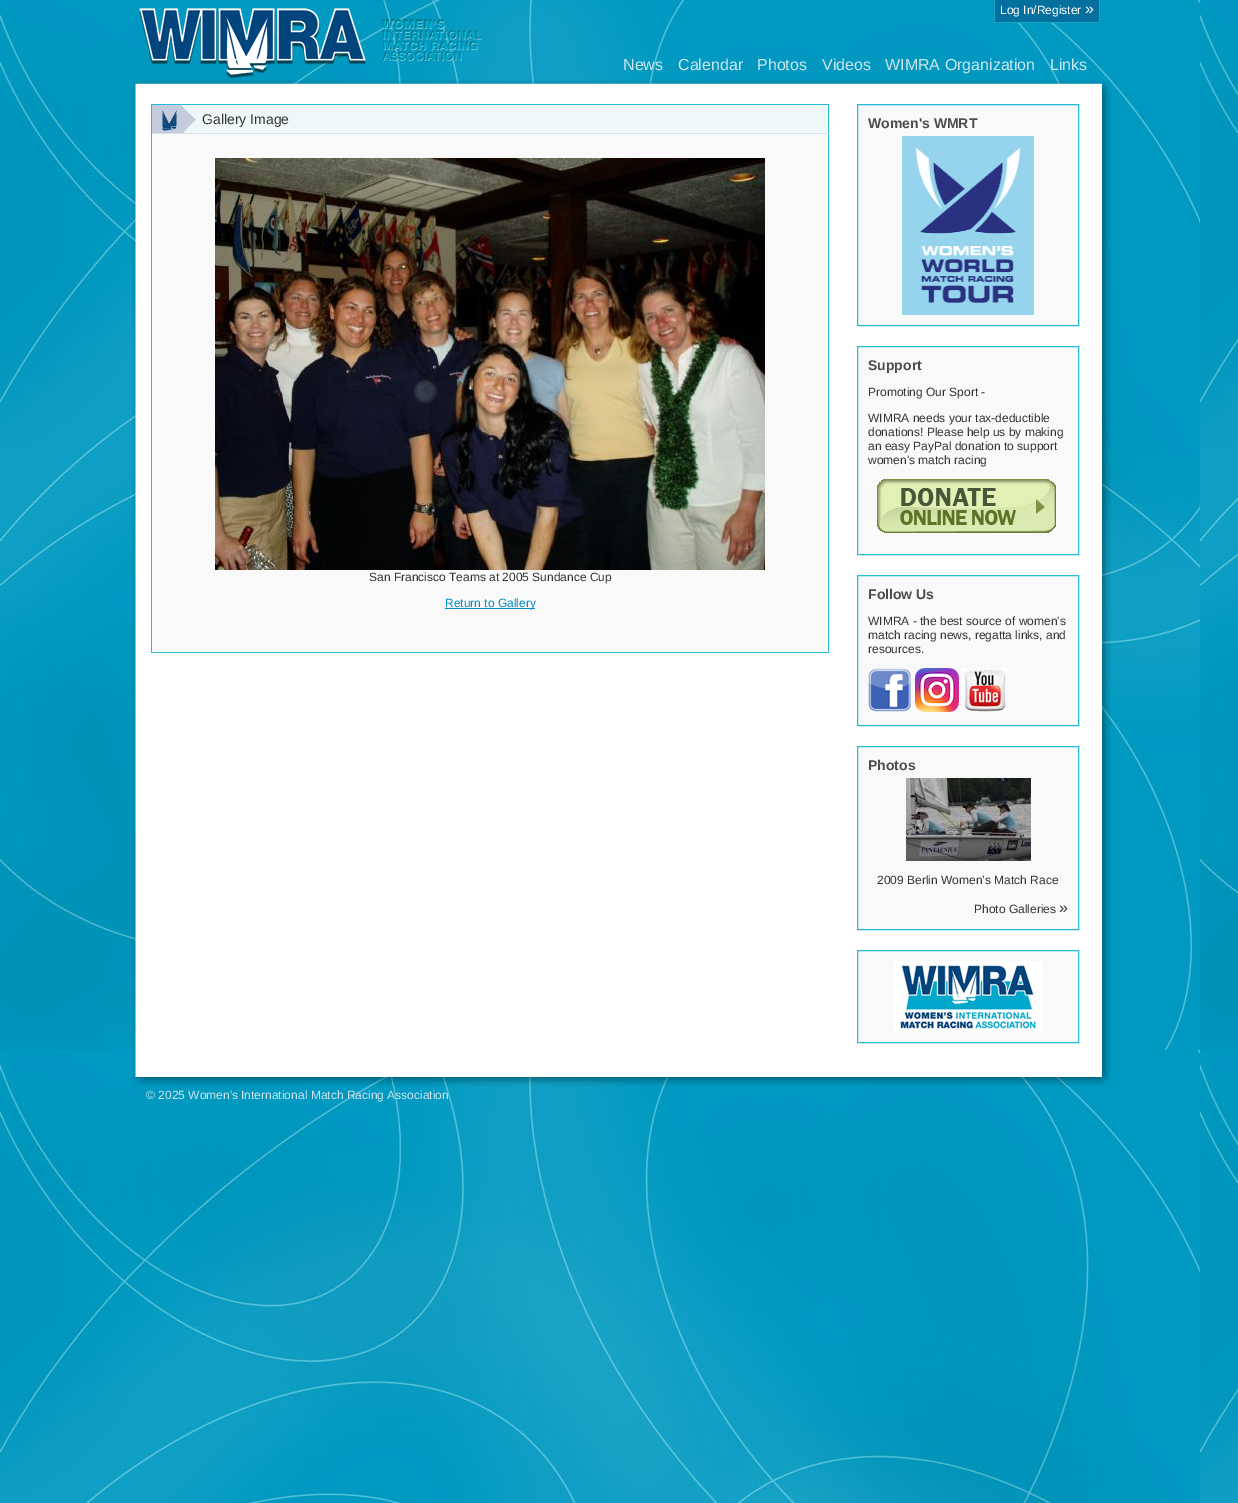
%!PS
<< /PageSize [1238 1503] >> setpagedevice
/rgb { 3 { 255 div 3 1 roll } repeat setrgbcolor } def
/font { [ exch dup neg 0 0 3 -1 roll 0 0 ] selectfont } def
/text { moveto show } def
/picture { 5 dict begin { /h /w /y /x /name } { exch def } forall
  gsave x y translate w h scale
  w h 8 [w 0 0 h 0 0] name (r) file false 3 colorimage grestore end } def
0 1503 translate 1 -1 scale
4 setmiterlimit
255 255 255 rgb
0 0 1238 1503 rectfill
(img_01.rgb) 0 0 1238 1503 picture
(img_02.rgb) 139 8 343 71 picture
3 112 158 rgb
995 0 104 22 rectfill
25 164 199 rgb
994 22 91 1 rectfill
994 0 1 23 rectfill
1099 0 1 23 rectfill
1085 22 15 1 rectfill
(img_03.rgb) 132 80 979 14 picture
(img_04.rgb) 132 94 979 974 picture
239 247 249 rgb
196 105 632 28 rectfill
(img_05.rgb) 152 105 44 28 picture
38 187 214 rgb
151 104 678 1 rectfill
828 104 1 549 rectfill
215 226 229 rgb
151 133 678 1 rectfill
38 187 214 rgb
151 104 1 528 rectfill
249 249 249 rgb
152 134 676 518 rectfill
(img_06.rgb) 215 158 550 412 picture
0 140 202 rgb
445 608 90 1 rectfill
38 187 214 rgb
151 652 678 1 rectfill
151 632 1 21 rectfill
249 249 249 rgb
857.5 104.5 moveto 221 0 rlineto 0 221 rlineto -221 0 rlineto closepath gsave fill grestore
38 187 214 rgb
stroke
(img_07.rgb) 902 136 132 179 picture
249 249 249 rgb
857.5 346.5 moveto 221 0 rlineto 0 208 rlineto -221 0 rlineto closepath gsave fill grestore
38 187 214 rgb
stroke
(img_08.rgb) 877 479 179 54 picture
249 249 249 rgb
857.5 575.5 moveto 221 0 rlineto 0 150 rlineto -221 0 rlineto closepath gsave fill grestore
38 187 214 rgb
stroke
(img_09.rgb) 868 668 44 44 picture
(img_10.rgb) 915 668 44 44 picture
(img_11.rgb) 963 668 44 44 picture
249 249 249 rgb
857.5 746.5 moveto 221 0 rlineto 0 183 rlineto -221 0 rlineto closepath gsave fill grestore
38 187 214 rgb
stroke
(img_12.rgb) 906 778 125 83 picture
249 249 249 rgb
857.5 950.5 moveto 221 0 rlineto 0 92 rlineto -221 0 rlineto closepath gsave fill grestore
38 187 214 rgb
stroke
(img_13.rgb) 893 961 150 71 picture
(img_14.rgb) 132 1068 979 18 picture
/LiberationSans-Regular 12 font
255 255 255 rgb
(Log In/Register) 1000 14 text
/LiberationSans-Regular 16 font
(») 1085 14 text
206 228 237 rgb
(News) 623 70 text
(Calendar) 678 70 text
(Photos) 757 70 text
(Videos) 822 70 text
(WIMRA Organization) 885 70 text
(Links) 1050 70 text
/LiberationSans-Regular 14 font
51 51 51 rgb
(Gallery Image) 202 124 text
/LiberationSans-Regular 12 font
(San Francisco Teams at 2005 Sundance Cup) 369 581 text
0 140 202 rgb
(Return to Gallery) 445 607 text
/LiberationSans-Bold 14 font
77 77 77 rgb
(Women's WMRT) 868 128 text
(Support) 868 370 text
/LiberationSans-Regular 12 font
51 51 51 rgb
(Promoting Our Sport -) 868 396 text
(WIMRA needs your tax-deductible) 868 422 text
(donations! Please help us by making) 868 436 text
(an easy PayPal donation to support) 868 450 text
(women's match racing) 868 464 text
/LiberationSans-Bold 14 font
77 77 77 rgb
(Follow Us) 868 599 text
/LiberationSans-Regular 12 font
51 51 51 rgb
(WIMRA - the best source of women's) 868 625 text
(match racing news, regatta links, and) 868 639 text
(resources.) 868 653 text
/LiberationSans-Bold 14 font
77 77 77 rgb
(Photos) 868 770 text
/LiberationSans-Regular 12 font
51 51 51 rgb
(2009 Berlin Women’s Match Race) 877 884 text
(Photo Galleries) 974 913 text
/LiberationSans-Regular 16 font
(») 1059 913 text
/LiberationSans-Regular 12 font
206 228 237 rgb
(© 2025 Women's International Match Racing Association) 146 1099 text
showpage
